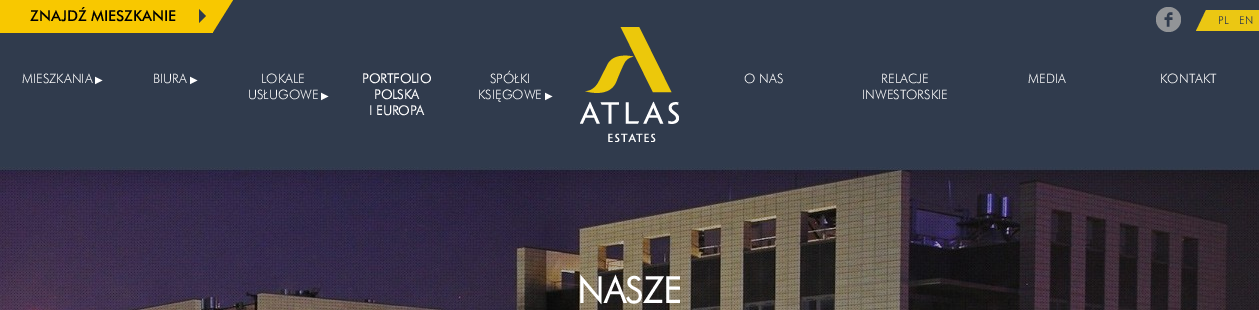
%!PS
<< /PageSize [1259 310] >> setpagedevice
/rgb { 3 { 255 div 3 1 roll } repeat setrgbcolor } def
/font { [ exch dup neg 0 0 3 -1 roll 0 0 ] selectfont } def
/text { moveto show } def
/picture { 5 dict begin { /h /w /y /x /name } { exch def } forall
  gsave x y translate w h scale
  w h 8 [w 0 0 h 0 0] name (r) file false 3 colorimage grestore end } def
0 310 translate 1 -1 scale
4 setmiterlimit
255 255 255 rgb
0 0 1259 310 rectfill
48 59 77 rgb
0 0 1259 167 rectfill
248 200 0 rgb
0 0 213 33 rectfill
48 59 77 rgb
199 23 moveto 0 -14 rlineto 7 7 rlineto closepath fill
248 200 0 rgb
213 0 moveto 20 0 rlineto -20 32 rlineto closepath fill
(img_01.rgb) 1156 7 25 25 picture
235 199 19 rgb
1206 10 53 21 rectfill
1206 31 moveto -10 0 rlineto 10 -21 rlineto closepath fill
(img_02.rgb) 580 27 99 115 picture
(img_03.rgb) 0 167 1259 143 picture
/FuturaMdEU-Regular 15 font
0 0 0 rgb
(ZNAJDŹ MIESZKANIE) 30 21 text
/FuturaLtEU-Regular 11 font
48 59 77 rgb
(PL) 1218 24 text
(EN) 1239 24 text
/FuturaLtEU-Regular 13 font
255 255 255 rgb
(MIESZKANIA) 22 83 text
/DejaVuSans-Regular 10 font
(▶) 95 83 text
/FuturaLtEU-Regular 13 font
(BIURA) 153 83 text
/DejaVuSans-Regular 10 font
(▶) 190 83 text
/FuturaLtEU-Regular 13 font
(LOKALE) 261 83 text
(USŁUGOWE) 248 99 text
/DejaVuSans-Regular 10 font
(▶) 321 99 text
/FuturaLtEU-Bold 13 font
(PORTFOLIO) 362 83 text
(POLSKA) 374 99 text
(I EUROPA) 369 115 text
/FuturaLtEU-Regular 13 font
(SPÓŁKI) 490 83 text
(KSIĘGOWE) 478 99 text
/DejaVuSans-Regular 10 font
(▶) 545 99 text
/FuturaLtEU-Regular 13 font
(O NAS) 744 83 text
(RELACJE) 881 83 text
(INWESTORSKIE) 862 99 text
(MEDIA) 1028 83 text
(KONTAKT) 1160 83 text
/FuturaLtEU-Bold 36 font
(NASZE) 577 303 text
showpage
